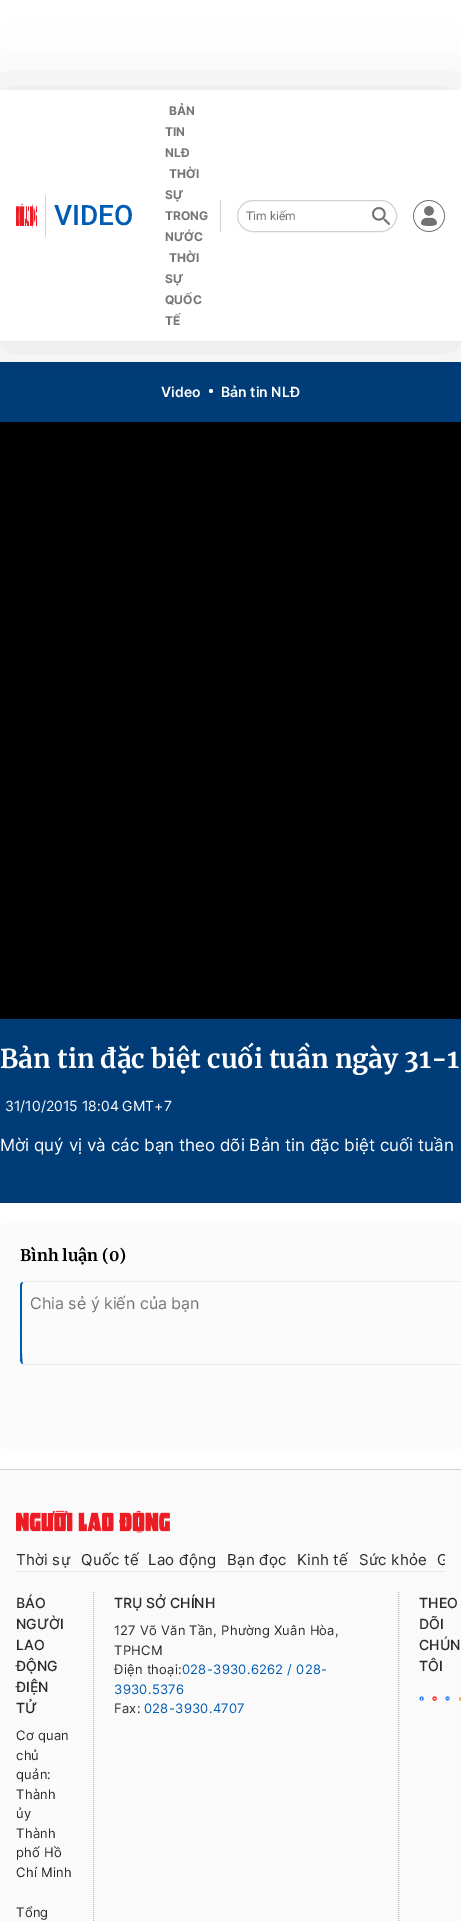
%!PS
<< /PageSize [461 1921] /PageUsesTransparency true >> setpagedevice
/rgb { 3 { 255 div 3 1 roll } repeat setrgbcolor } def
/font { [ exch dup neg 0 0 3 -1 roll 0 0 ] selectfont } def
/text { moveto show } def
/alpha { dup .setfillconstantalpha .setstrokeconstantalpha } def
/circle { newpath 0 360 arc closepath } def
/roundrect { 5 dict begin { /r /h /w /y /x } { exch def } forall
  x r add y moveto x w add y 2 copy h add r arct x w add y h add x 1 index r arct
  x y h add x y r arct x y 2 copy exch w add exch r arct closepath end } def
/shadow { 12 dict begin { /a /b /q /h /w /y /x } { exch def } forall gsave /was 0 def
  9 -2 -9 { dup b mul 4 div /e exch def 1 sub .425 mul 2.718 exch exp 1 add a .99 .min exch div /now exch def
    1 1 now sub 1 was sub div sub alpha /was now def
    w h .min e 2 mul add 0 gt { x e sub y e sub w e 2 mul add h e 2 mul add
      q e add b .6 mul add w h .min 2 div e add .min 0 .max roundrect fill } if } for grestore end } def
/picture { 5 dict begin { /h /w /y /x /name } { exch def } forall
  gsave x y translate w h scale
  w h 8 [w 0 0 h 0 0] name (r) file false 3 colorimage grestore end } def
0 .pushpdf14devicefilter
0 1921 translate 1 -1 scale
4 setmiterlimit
255 255 255 rgb
0 0 461 1921 rectfill
0 61 120 rgb
0 362 461 841 rectfill
gsave
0 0 moveto 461 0 rlineto 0 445 rlineto -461 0 rlineto closepath 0 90 moveto 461 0 rlineto 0 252 rlineto -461 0 rlineto closepath eoclip newpath
0 0 0 rgb
0 94 461 252 0 32.5 0.12 shadow
grestore
235 235 235 rgb
0 341 461 1 rectfill
(img_01.rgb) 16 204 21 24 picture
210 210 210 rgb
45 195 1 42 rectfill
220 200 1 32 rectfill
237.5 200.5 159 31 15.5 roundrect stroke
(img_02.rgb) 372 207 18 18 picture
(img_03.rgb) 413 200 32 32 picture
255 255 255 rgb
211 391 2 circle fill
0 0 0 rgb
0 422 461 597 rectfill
251 251 251 rgb
0 1223 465 226 4 roundrect fill
233 235 236 rgb
24 1281 moveto -2 1 rlineto 1 0 rlineto 1 0 rlineto 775 0 rlineto 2 1 rlineto 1 -1 rlineto -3 -1 rlineto closepath fill
24 1365 moveto 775 0 rlineto 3 -1 rlineto -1 -1 rlineto -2 1 rlineto -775 0 rlineto -1 0 rlineto -1 0 rlineto closepath fill
0 91 178 rgb
20 1285 moveto 0 76 rlineto 2 3 rlineto 1 0 rlineto -2 -2 -1 -59 -1 -66 rcurveto 0 -13 rlineto 1 -3 rlineto -1 0 rlineto -1 1 -2 2 -2 3 rcurveto closepath fill
250 250 250 rgb
0 1470 461 451 rectfill
210 210 210 rgb
0 1469 461 1 rectfill
(img_04.rgb) 16 1510 154 23 picture
235 235 235 rgb
16 1571 429 1 rectfill
188 188 188 rgb
[1 1] 0 setdash
93.5 1592 moveto 0 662 rlineto stroke
398.5 1592 moveto 0 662 rlineto stroke
(img_05.rgb) 419 1696 5 5 picture
(img_06.rgb) 432 1696 5 5 picture
(img_07.rgb) 445 1696 5 5 picture
(img_08.rgb) 459 1697 2 4 picture
/Roboto-Medium 28 font
0 91 178 rgb
(VIDEO) 54 225 text
/Inter-Bold 12 font
117 117 117 rgb
(BẢN) 169 115 text
(TIN) 165 136 text
(NLĐ) 165 157 text
(THỜI) 169 178 text
(SỰ) 165 199 text
(TRONG) 165 220 text
(NƯỚC) 165 241 text
(THỜI) 169 262 text
(SỰ) 165 283 text
(QUỐC) 165 304 text
(TẾ) 165 325 text
/Roboto-Regular 12 font
(Tìm kiếm) 246 220 text
/Inter-SemiBold 14 font
255 255 255 rgb
(Video) 161 397 text
(Bản tin NLĐ) 221 397 text
/Merriweather-Bold 26 font
(Bản tin đặc biệt cuối tuần ngày 31-1) 0 1068 text
/Inter-Regular 14 font
(31/10/2015 18:04 GMT+7) 5 1111 text
/Inter-Regular 17 font
(Mời quý vị và các bạn theo dõi Bản tin đặc biệt cuối tuần) 0 1151 text
/Merriweather-Bold 16 font
0 0 0 rgb
(Bình luận \(0\)) 20 1261 text
/Inter-Regular 16 font
117 117 117 rgb
(Chia sẻ ý kiến của bạn) 30 1309 text
/Inter-Regular 15 font
41 41 41 rgb
16 1565 moveto 0.25 0 (Thời sự) ashow
81 1565 moveto 0.25 0 (Quốc tế) ashow
148 1565 moveto 0.25 0 (Lao động) ashow
227 1565 moveto 0.25 0 (Bạn đọc) ashow
297 1565 moveto 0.25 0 (Kinh tế) ashow
359 1565 moveto 0.25 0 (Sức khỏe) ashow
gsave
16 1549 429 22 rectclip
437 1565 moveto 0.25 0 (G) ashow
grestore
/Inter-Medium 14 font
(BÁO) 16 1608 text
(NGƯỜI) 16 1629 text
(LAO) 16 1650 text
(ĐỘNG) 16 1671 text
(ĐIỆN) 16 1692 text
(TỬ) 16 1713 text
/Inter-Regular 13 font
16 1740 moveto 0.25 0 (Cơ quan) ashow
16 1760 moveto 0.25 0 (chủ) ashow
16 1779 moveto 0.25 0 (quản:) ashow
16 1799 moveto 0.25 0 (Thành) ashow
16 1818 moveto 0.25 0 (ủy) ashow
16 1838 moveto 0.25 0 (Thành) ashow
16 1857 moveto 0.25 0 (phố Hồ) ashow
16 1877 moveto 0.25 0 (Chí Minh) ashow
16 1917 moveto 0.25 0 (Tổng) ashow
/Inter-Medium 14 font
(TRỤ SỞ CHÍNH) 114 1608 text
/Inter-Regular 13 font
114 1635 moveto 0.25 0 (127 Võ Văn Tần, Phường Xuân Hòa,) ashow
114 1655 moveto 0.25 0 (TPHCM) ashow
114 1674 moveto 0.25 0 (Điện thoại:) ashow
0 91 178 rgb
182 1674 moveto 0.25 0 (028-3930.6262 / 028-) ashow
114 1694 moveto 0.25 0 (3930.5376) ashow
41 41 41 rgb
114 1713 moveto 0.25 0 (Fax:) ashow
0 91 178 rgb
144 1713 moveto 0.25 0 (028-3930.4707) ashow
/Inter-Medium 14 font
41 41 41 rgb
(THEO) 419 1608 text
(DÕI) 419 1629 text
(CHÚN) 419 1650 text
(TÔI) 419 1671 text
.poppdf14devicefilter showpage
